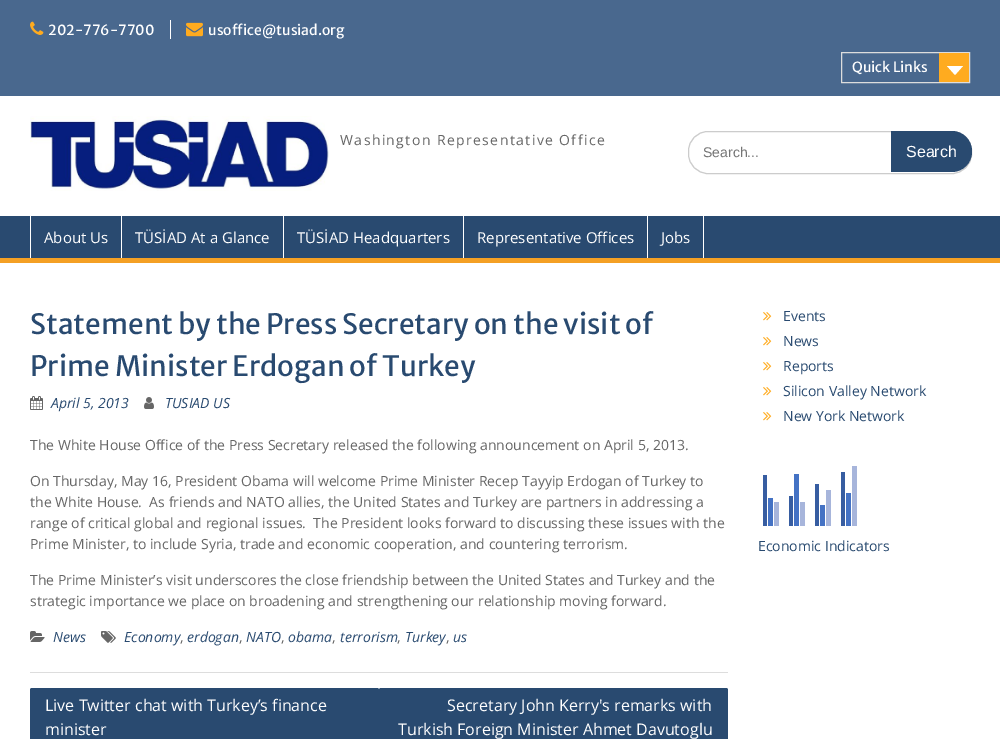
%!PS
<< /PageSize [1000 739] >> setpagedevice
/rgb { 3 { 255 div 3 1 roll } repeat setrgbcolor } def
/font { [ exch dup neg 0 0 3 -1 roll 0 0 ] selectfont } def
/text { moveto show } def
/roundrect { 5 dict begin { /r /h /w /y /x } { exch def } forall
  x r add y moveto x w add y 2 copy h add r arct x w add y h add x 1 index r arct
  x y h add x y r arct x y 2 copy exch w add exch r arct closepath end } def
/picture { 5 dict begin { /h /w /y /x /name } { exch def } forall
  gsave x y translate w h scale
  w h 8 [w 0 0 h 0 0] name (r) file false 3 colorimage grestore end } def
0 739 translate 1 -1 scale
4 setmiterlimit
255 255 255 rgb
0 0 1000 739 rectfill
73 104 142 rgb
0 0 1000 96 rectfill
(img_01.rgb) 30 21 14 14 picture
255 255 255 rgb
170 20 1 19 rectfill
(img_02.rgb) 186 22 17 15 picture
221 221 221 rgb
841.5 52.5 128 30 rectstroke
255 171 31 rgb
939 53 30 29 rectfill
255 255 255 rgb
947 66 moveto 16 0 rlineto -8 9 rlineto closepath fill
(img_03.rgb) 30 116 299 75 picture
204 204 204 rgb
688.5 131.5 283 42 19.5 roundrect stroke
41 74 112 rgb
891 131 moveto 61 0 rlineto 11 0 20 9 20 20 rcurveto 0 1 rlineto 0 11 -9 20 -20 20 rcurveto -61 0 rlineto closepath fill
0 216 1000 42 rectfill
244 160 36 rgb
0 258 1000 5 rectfill
255 255 255 rgb
121 216 1 42 rectfill
30 216 1 42 rectfill
283 216 1 42 rectfill
463 216 1 42 rectfill
647 216 1 42 rectfill
703 216 1 42 rectfill
221 221 221 rgb
30 672 698 1 rectfill
(img_04.rgb) 30 396 13 14 picture
(img_05.rgb) 144 397 10 12 picture
(img_06.rgb) 30 631 15 11 picture
(img_07.rgb) 101 631 15 12 picture
41 74 112 rgb
30 688 349 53 2 roundrect fill
379 688 349 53 2 roundrect fill
(img_08.rgb) 763 312 9 9 picture
(img_08.rgb) 763 337 9 9 picture
(img_08.rgb) 763 362 9 9 picture
(img_08.rgb) 763 387 9 9 picture
(img_08.rgb) 763 412 9 9 picture
(img_09.rgb) 763 466 94 60 picture
/MerriweatherSans-Regular 14 font
255 255 255 rgb
(202-776-7700) 48 35 text
(usoffice@tusiad.org) 208 35 text
(Quick Links) 852 72 text
/OpenSans-Regular 14 font
102 102 102 rgb
340 145 moveto 1.4 0 (Washington Representative Office) ashow
/LiberationSans-Regular 14 font
117 117 117 rgb
(Search...) 703 157 text
/LiberationSans-Regular 16 font
255 255 255 rgb
(Search) 906 157 text
/OpenSans-Regular 15 font
(About Us) 44 243 text
(TÜSİAD At a Glance) 135 243 text
(TÜSİAD Headquarters) 297 243 text
(Representative Offices) 477 243 text
(Jobs) 661 243 text
/MerriweatherSans-Regular 28 font
41 74 112 rgb
(Statement by the Press Secretary on the visit of) 30 334 text
(Prime Minister Erdogan of Turkey) 30 376 text
/OpenSans-Italic 14 font
(April 5, 2013) 51 408 text
(TUSIAD US) 165 408 text
/OpenSans-Regular 14 font
102 102 102 rgb
(The White House Office of the Press Secretary released the following announcement on April 5, 2013.) 30 450 text
(On Thursday, May 16, President Obama will welcome Prime Minister Recep Tayyip Erdogan of Turkey to) 30 486 text
(the White House.  As friends and NATO allies, the United States and Turkey are partners in addressing a) 30 507 text
(range of critical global and regional issues.  The President looks forward to discussing these issues with the) 30 528 text
(Prime Minister, to include Syria, trade and economic cooperation, and countering terrorism.) 30 549 text
(The Prime Minister’s visit underscores the close friendship between the United States and Turkey and the) 30 585 text
(strategic importance we place on broadening and strengthening our relationship moving forward.) 30 606 text
/OpenSans-Italic 14 font
41 74 112 rgb
(News) 53 642 text
(Economy) 124 642 text
/OpenSans-Regular 14 font
102 102 102 rgb
(,) 180 642 text
/OpenSans-Italic 14 font
41 74 112 rgb
(erdogan) 187 642 text
/OpenSans-Regular 14 font
102 102 102 rgb
(,) 239 642 text
/OpenSans-Italic 14 font
41 74 112 rgb
(NATO) 246 642 text
/OpenSans-Regular 14 font
102 102 102 rgb
(,) 281 642 text
/OpenSans-Italic 14 font
41 74 112 rgb
(obama) 288 642 text
/OpenSans-Regular 14 font
102 102 102 rgb
(,) 332 642 text
/OpenSans-Italic 14 font
41 74 112 rgb
(terrorism) 340 642 text
/OpenSans-Regular 14 font
102 102 102 rgb
(,) 397 642 text
/OpenSans-Italic 14 font
41 74 112 rgb
(Turkey) 405 642 text
/OpenSans-Regular 14 font
102 102 102 rgb
(,) 446 642 text
/OpenSans-Italic 14 font
41 74 112 rgb
(us) 453 642 text
/OpenSans-Regular 16 font
255 255 255 rgb
(Live Twitter chat with Turkey’s finance) 45 711 text
(minister) 45 735 text
(Secretary John Kerry's remarks with) 447 711 text
(Turkish Foreign Minister Ahmet Davutoglu) 398 735 text
/OpenSans-Regular 14 font
41 74 112 rgb
(Events) 783 321 text
(News) 783 346 text
(Reports) 783 371 text
(Silicon Valley Network) 783 396 text
(New York Network) 783 421 text
(Economic Indicators) 758 551 text
showpage
